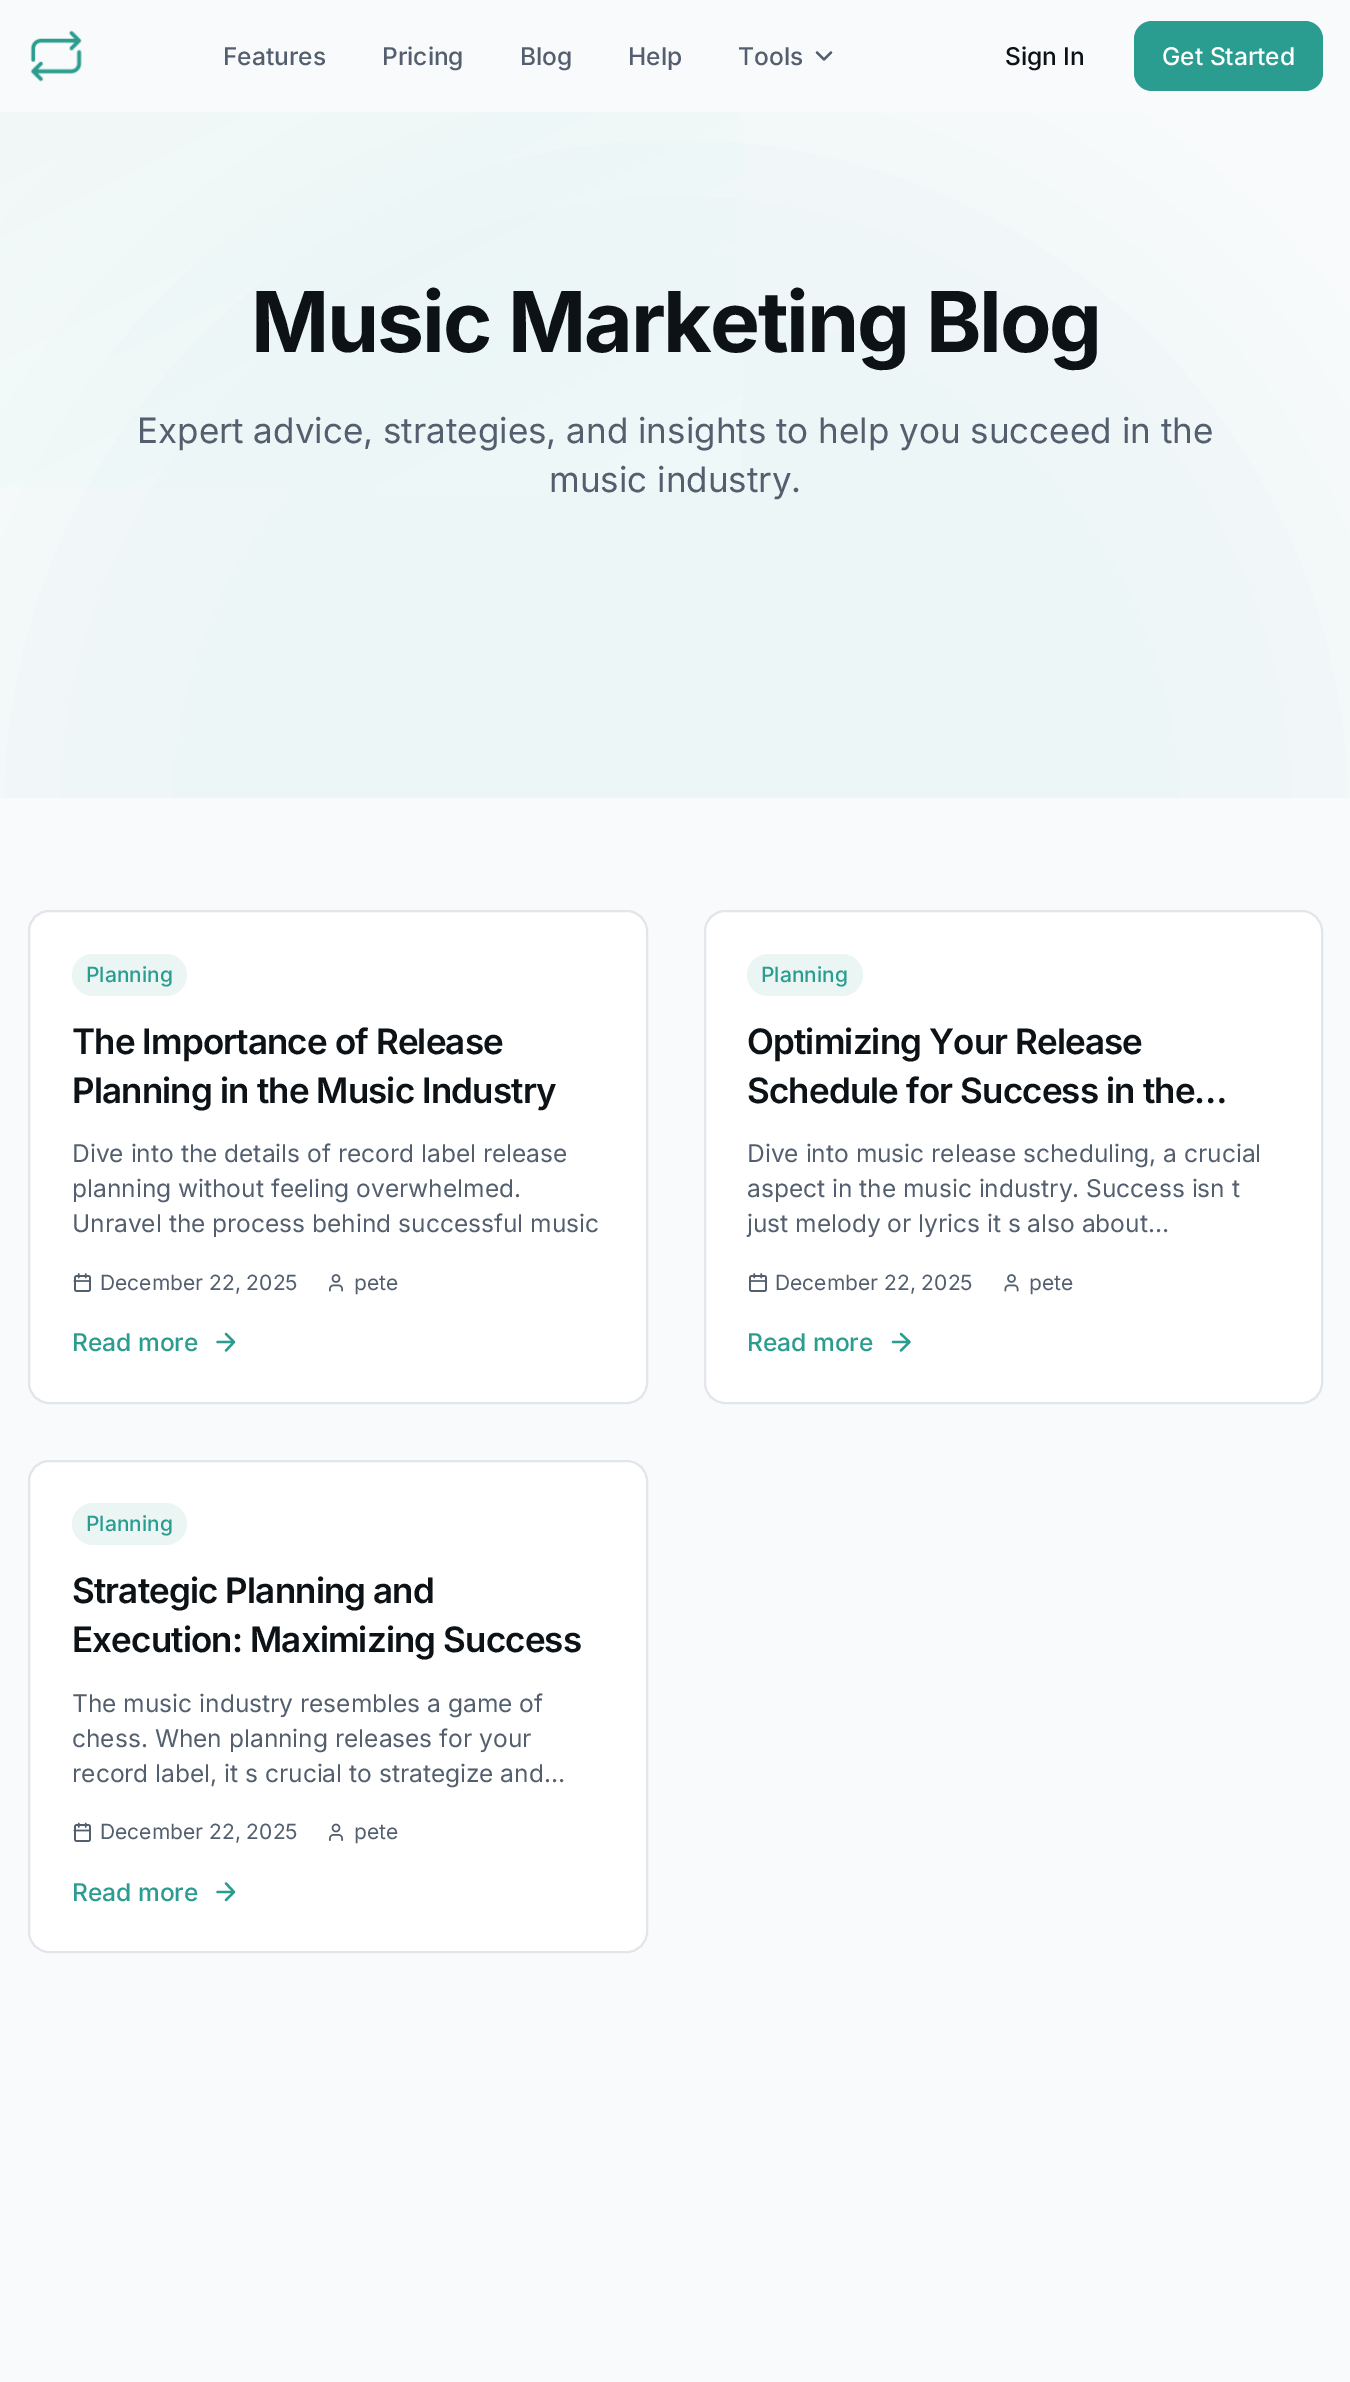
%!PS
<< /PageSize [1350 2382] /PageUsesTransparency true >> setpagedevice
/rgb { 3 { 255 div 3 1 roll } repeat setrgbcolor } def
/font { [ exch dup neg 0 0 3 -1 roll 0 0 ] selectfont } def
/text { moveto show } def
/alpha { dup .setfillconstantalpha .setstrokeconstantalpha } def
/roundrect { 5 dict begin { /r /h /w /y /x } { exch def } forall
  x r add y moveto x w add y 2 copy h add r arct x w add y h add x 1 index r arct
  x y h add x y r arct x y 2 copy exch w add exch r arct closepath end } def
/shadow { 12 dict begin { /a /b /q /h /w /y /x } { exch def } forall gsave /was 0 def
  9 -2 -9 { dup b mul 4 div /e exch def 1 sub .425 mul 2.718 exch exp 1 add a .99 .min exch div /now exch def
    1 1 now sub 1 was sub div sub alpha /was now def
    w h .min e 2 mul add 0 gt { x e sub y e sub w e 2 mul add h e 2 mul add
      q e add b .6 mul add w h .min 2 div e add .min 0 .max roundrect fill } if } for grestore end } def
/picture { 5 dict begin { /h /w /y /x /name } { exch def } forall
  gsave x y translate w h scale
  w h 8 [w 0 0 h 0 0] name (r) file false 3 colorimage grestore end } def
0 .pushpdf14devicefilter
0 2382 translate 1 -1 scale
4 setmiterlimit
249 250 251 rgb
0 0 1350 2382 rectfill
gsave 0 112 moveto 743 0 rlineto 0 377 rlineto -743 0 rlineto closepath clip newpath
<< /ShadingType 2 /ColorSpace /DeviceRGB /Coords [399 -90 952 1000] /Extend [true true] /Function << /FunctionType 3 /Domain [0 1] /Functions [<< /FunctionType 2 /Domain [0 1] /C0 [0.945 0.969 0.969] /C1 [0.984 0.988 0.988] /N 1 >> << /FunctionType 2 /Domain [0 1] /C0 [0.984 0.988 0.988] /C1 [0.98 0.988 0.988] /N 1 >>] /Bounds [0.5] /Encode [0 1 0 1] >> >> shfill grestore
gsave
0 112 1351 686 rectclip
42 157 144 rgb
-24 112 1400 1400 700 112 0.05 shadow
grestore
(img_01.rgb) 30 30 52 52 picture
83 95 110 rgb
2.3 setlinewidth
1 setlinecap
1 setlinejoin
817 52.5 moveto 7 7 rlineto 7 -7 rlineto stroke
42 157 144 rgb
1134 21 189 70 18 roundrect fill
255 255 255 rgb
29 911 618 492 20 roundrect gsave fill grestore
226 229 233 rgb
2 setlinewidth
0 setlinecap
0 setlinejoin
stroke
234 245 244 rgb
72 954 115 42 21 roundrect fill
(img_02.rgb) 73 1273 18 19 picture
(img_03.rgb) 328 1274 16 18 picture
42 157 144 rgb
2.3 setlinewidth
1 setlinecap
1 setlinejoin
217.5 1342 moveto 16.5 0 rlineto 226 1334 moveto 8 8 rlineto -8 8.5 rlineto stroke
255 255 255 rgb
705 911 617 492 20 roundrect gsave fill grestore
226 229 233 rgb
2 setlinewidth
0 setlinecap
0 setlinejoin
stroke
234 245 244 rgb
747 954 116 42 21 roundrect fill
(img_04.rgb) 749 1273 18 19 picture
(img_05.rgb) 1004 1274 15 18 picture
42 157 144 rgb
2.3 setlinewidth
1 setlinecap
1 setlinejoin
893 1342 moveto 16.5 0 rlineto 901 1334 moveto 8.5 8 rlineto -8.5 8.5 rlineto stroke
255 255 255 rgb
29 1461 618 491 20 roundrect gsave fill grestore
226 229 233 rgb
2 setlinewidth
0 setlinecap
0 setlinejoin
stroke
234 245 244 rgb
72 1503 115 42 21 roundrect fill
(img_06.rgb) 73 1822 18 20 picture
(img_07.rgb) 328 1823 16 18 picture
42 157 144 rgb
2.3 setlinewidth
1 setlinecap
1 setlinejoin
217.5 1892 moveto 16.5 0 rlineto 226 1883.5 moveto 8 8.5 rlineto -8 8 rlineto stroke
/Inter-Medium 24.5 font
83 95 110 rgb
(Features) 223 65 text
(Pricing) 382 65 text
(Blog) 520 65 text
(Help) 628 65 text
(Tools) 738 65 text
13 18 23 rgb
(Sign In) 1005 65 text
255 255 255 rgb
(Get Started) 1162 65 text
/Inter-Bold 84 font
13 18 23 rgb
251 352 moveto -2.1 0 (Music Marketing Blog) ashow
/Inter-Regular 35 font
83 95 110 rgb
(Expert advice, strategies, and insights to help you succeed in the) 137 443 text
(music industry.) 549 492 text
/Inter-Medium 21 font
42 157 144 rgb
(Planning) 86 982 text
/Inter-SemiBold 35 font
13 18 23 rgb
72 1054 moveto -0.9 0 (The Importance of Release) ashow
72 1103 moveto -0.9 0 (Planning in the Music Industry) ashow
/Inter-Regular 24.5 font
83 95 110 rgb
(Dive into the details of record label release) 72 1162 text
(planning without feeling overwhelmed.) 72 1197 text
(Unravel the process behind successful music) 72 1232 text
/Inter-Regular 21 font
(December 22, 2025) 100 1290 text
(pete) 354 1290 text
/Inter-Medium 24.5 font
42 157 144 rgb
(Read more) 72 1351 text
/Inter-Medium 21 font
(Planning) 761 982 text
/Inter-SemiBold 35 font
13 18 23 rgb
747 1054 moveto -0.9 0 (Optimizing Your Release) ashow
747 1103 moveto -0.9 0 (Schedule for Success in the…) ashow
/Inter-Regular 24.5 font
83 95 110 rgb
(Dive into music release scheduling, a crucial) 747 1162 text
(aspect in the music industry. Success isn t) 747 1197 text
(just melody or lyrics it s also about…) 747 1232 text
/Inter-Regular 21 font
(December 22, 2025) 775 1290 text
(pete) 1029 1290 text
/Inter-Medium 24.5 font
42 157 144 rgb
(Read more) 747 1351 text
/Inter-Medium 21 font
(Planning) 86 1531 text
/Inter-SemiBold 35 font
13 18 23 rgb
72 1603 moveto -0.9 0 (Strategic Planning and) ashow
72 1652 moveto -0.9 0 (Execution: Maximizing Success) ashow
/Inter-Regular 24.5 font
83 95 110 rgb
(The music industry resembles a game of) 72 1712 text
(chess. When planning releases for your) 72 1747 text
(record label, it s crucial to strategize and…) 72 1782 text
/Inter-Regular 21 font
(December 22, 2025) 100 1839 text
(pete) 354 1839 text
/Inter-Medium 24.5 font
42 157 144 rgb
(Read more) 72 1901 text
.poppdf14devicefilter showpage
